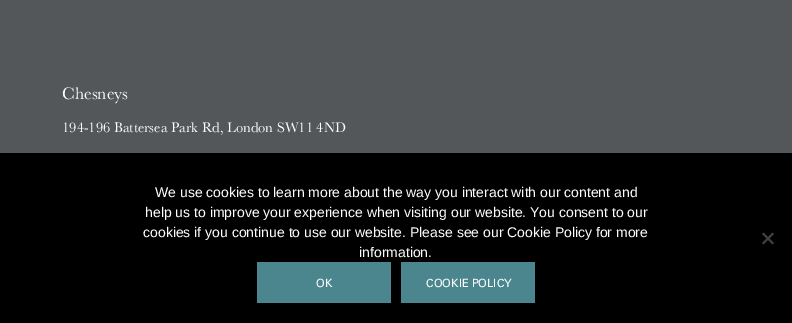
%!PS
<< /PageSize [792 323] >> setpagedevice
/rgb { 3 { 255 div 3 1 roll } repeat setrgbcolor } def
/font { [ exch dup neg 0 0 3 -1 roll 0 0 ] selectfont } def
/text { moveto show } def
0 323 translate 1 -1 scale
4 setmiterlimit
83 87 90 rgb
0 0 792 323 rectfill
0 0 0 rgb
0 153 792 170 rectfill
64 64 64 rgb
772.5 232.5 moveto 1.5 1.5 rlineto -10.5 10.5 rlineto -1.5 -1.5 rlineto closepath fill
762 234 moveto 1.5 -1.5 rlineto 10.5 10.5 rlineto -1.5 1.5 rlineto closepath fill
75 133 142 rgb
257 262 134 41 rectfill
401 262 134 41 rectfill
/Baskerville-Regular 17.5 font
255 255 255 rgb
(Chesneys) 62 99 text
/Baskerville-Regular 14.5 font
(194-196 Battersea Park Rd, London SW11 4ND) 62 132 text
/LiberationSans-Regular 14 font
(We use cookies to learn more about the way you interact with our content and) 155 197 text
(help us to improve your experience when visiting our website. You consent to our) 145 217 text
(cookies if you continue to use our website. Please see our Cookie Policy for more) 143 237 text
(information.) 359 257 text
/Univers-Regular 11.25 font
(OK) 316 287 text
(COOKIE POLICY) 426 287 text
showpage
